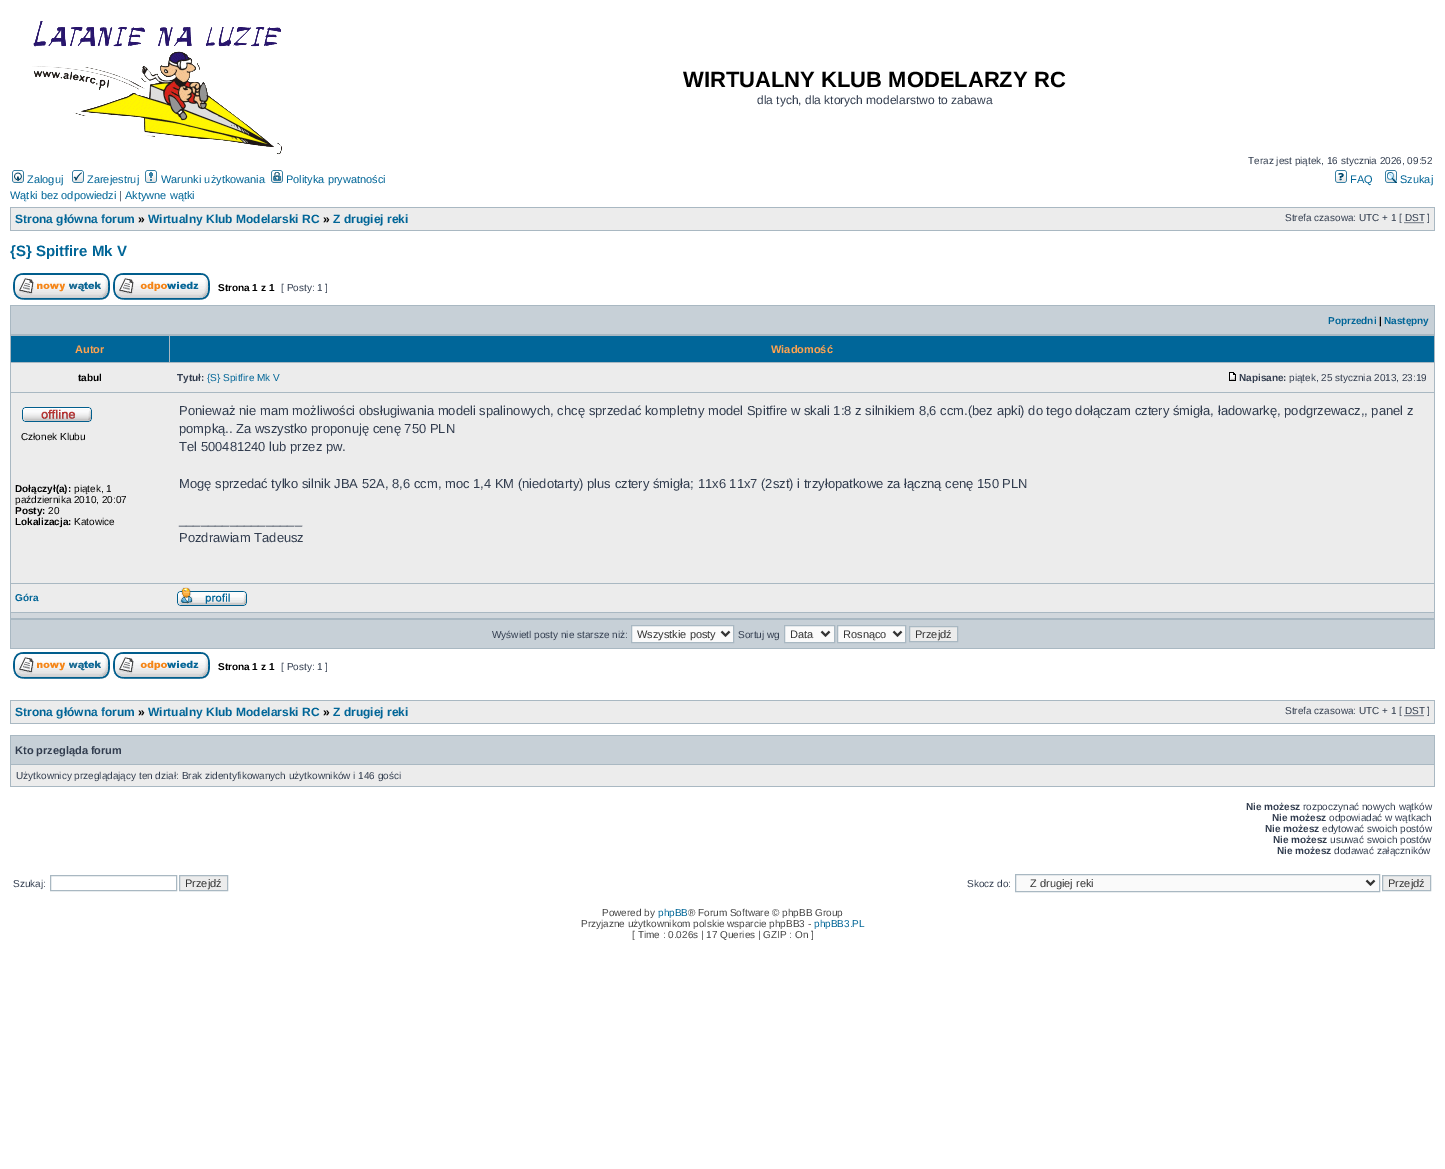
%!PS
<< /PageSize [1445 1169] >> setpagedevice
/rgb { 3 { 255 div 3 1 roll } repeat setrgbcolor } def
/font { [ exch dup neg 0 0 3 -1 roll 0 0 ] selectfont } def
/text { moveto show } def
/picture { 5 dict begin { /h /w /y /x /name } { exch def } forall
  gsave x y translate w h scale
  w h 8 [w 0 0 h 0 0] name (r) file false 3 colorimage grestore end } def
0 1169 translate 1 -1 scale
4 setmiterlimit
255 255 255 rgb
0 0 1445 1169 rectfill
(img_01.rgb) 32 20 250 135 picture
(img_02.rgb) 12 170 12 13 picture
(img_03.rgb) 72 170 12 13 picture
(img_04.rgb) 145 170 12 13 picture
(img_05.rgb) 271 170 12 13 picture
(img_06.rgb) 1335 170 12 13 picture
(img_07.rgb) 1385 170 12 13 picture
169 184 194 rgb
10 207 1425 24 rectfill
236 236 236 rgb
11 208 1423 22 rectfill
50 61 79 rgb
[1 1] 0 setdash
1404.5 222.5 moveto 20 0 rlineto stroke
(img_08.rgb) 13 273 97 27 picture
(img_09.rgb) 113 273 97 27 picture
169 184 194 rgb
10 305 1425 344 rectfill
199 208 215 rgb
11 306 1423 28 rectfill
0 102 153 rgb
11 336 158 26 rectfill
170 336 1264 26 rectfill
236 236 236 rgb
11 363 1423 29 rectfill
(img_10.rgb) 1229 372 7 9 picture
11 393 1423 190 rectfill
(img_11.rgb) 22 407 70 15 picture
11 584 1423 28 rectfill
(img_12.rgb) 177 587 70 19 picture
209 215 220 rgb
11 613 1423 5 rectfill
199 208 215 rgb
11 620 1423 28 rectfill
250 250 250 rgb
631.5 625.5 moveto 102 0 rlineto 0 17 rlineto -102 0 rlineto closepath gsave fill grestore
169 184 194 rgb
[] 0 setdash
stroke
51 51 51 rgb
2 setlinewidth
721.5 631.5 moveto 4 4 rlineto 4 -4 rlineto stroke
250 250 250 rgb
784.5 625.5 moveto 50 0 rlineto 0 17 rlineto -50 0 rlineto closepath gsave fill grestore
169 184 194 rgb
1 setlinewidth
stroke
51 51 51 rgb
2 setlinewidth
821.5 631.5 moveto 4 4 rlineto 4 -4 rlineto stroke
250 250 250 rgb
837.5 625.5 moveto 68 0 rlineto 0 17 rlineto -68 0 rlineto closepath gsave fill grestore
169 184 194 rgb
1 setlinewidth
stroke
51 51 51 rgb
2 setlinewidth
893.5 631.5 moveto 4 4 rlineto 4 -4 rlineto stroke
236 236 236 rgb
909.5 626.5 moveto 48 0 rlineto 0 15 rlineto -48 0 rlineto closepath gsave fill grestore
169 184 194 rgb
1 setlinewidth
stroke
(img_08.rgb) 13 652 97 27 picture
(img_09.rgb) 113 652 97 27 picture
10 700 1425 24 rectfill
236 236 236 rgb
11 701 1423 22 rectfill
50 61 79 rgb
[1 1] 0 setdash
1404.5 715.5 moveto 20 0 rlineto stroke
169 184 194 rgb
10 735 1425 52 rectfill
199 208 215 rgb
11 736 1423 28 rectfill
236 236 236 rgb
11 765 1423 21 rectfill
169 184 194 rgb
[] 0 setdash
50.5 875.5 126 15 rectstroke
236 236 236 rgb
179.5 875.5 moveto 48 0 rlineto 0 15 rlineto -48 0 rlineto closepath gsave fill grestore
169 184 194 rgb
stroke
250 250 250 rgb
1015.5 874.5 moveto 364 0 rlineto 0 17 rlineto -364 0 rlineto closepath gsave fill grestore
169 184 194 rgb
stroke
51 51 51 rgb
2 setlinewidth
1366.5 880.5 moveto 4 4 rlineto 4 -4 rlineto stroke
236 236 236 rgb
1382.5 875.5 moveto 48 0 rlineto 0 15 rlineto -48 0 rlineto closepath gsave fill grestore
169 184 194 rgb
1 setlinewidth
stroke
/LiberationSans-Bold 22 font
0 0 0 rgb
(WIRTUALNY KLUB MODELARZY RC) 683 87 text
/LiberationSans-Regular 12 font
50 61 79 rgb
(dla tych, dla ktorych modelarstwo to zabawa) 757 104 text
/LiberationSans-Regular 10 font
(Teraz jest piątek, 16 stycznia 2026, 09:52) 1248 164 text
/LiberationSans-Regular 11 font
0 101 151 rgb
(Zaloguj) 27 183 text
(Zarejestruj) 87 183 text
(Warunki użytkowania) 161 183 text
(Polityka prywatności) 286 183 text
(FAQ) 1350 183 text
(Szukaj) 1400 183 text
(Wątki bez odpowiedzi) 10 199 text
50 61 79 rgb
(|) 119 199 text
0 101 151 rgb
(Aktywne wątki) 125 199 text
/LiberationSans-Bold 12 font
(Strona główna forum) 15 223 text
0 0 0 rgb
(») 138 223 text
0 101 151 rgb
(Wirtualny Klub Modelarski RC) 148 223 text
0 0 0 rgb
(») 323 223 text
0 101 151 rgb
(Z drugiej reki) 333 223 text
/LiberationSans-Regular 10 font
50 61 79 rgb
(Strefa czasowa: UTC + 1 [ DST ]) 1285 221 text
/LiberationSans-Bold 15 font
0 101 151 rgb
({S} Spitfire Mk V) 10 256 text
/LiberationSans-Bold 10 font
0 0 0 rgb
(Strona 1 z 1) 218 291 text
/LiberationSans-Regular 10 font
50 61 79 rgb
([ Posty: 1 ]) 281 291 text
/LiberationSans-Bold 10 font
0 101 151 rgb
(Poprzedni) 1328 324 text
0 0 0 rgb
(|) 1379 324 text
0 101 151 rgb
(Następny) 1384 324 text
/LiberationSans-Bold 11 font
255 163 79 rgb
(Autor) 75 353 text
(Wiadomość) 771 353 text
/LiberationSans-Bold 10 font
0 0 0 rgb
(tabul) 78 381 text
50 61 79 rgb
(Tytuł:) 177 381 text
/LiberationSans-Regular 10 font
0 101 151 rgb
({S} Spitfire Mk V) 207 381 text
/LiberationSans-Bold 10 font
50 61 79 rgb
(Napisane:) 1239 381 text
/LiberationSans-Regular 10 font
(piątek, 25 stycznia 2013, 23:19) 1289 381 text
0 0 0 rgb
(Członek Klubu) 21 440 text
/LiberationSans-Bold 10 font
(Dołączył\(a\):) 15 492 text
/LiberationSans-Regular 10 font
(piątek, 1) 74 492 text
(października 2010, 20:07) 15 503 text
/LiberationSans-Bold 10 font
(Posty:) 15 514 text
/LiberationSans-Regular 10 font
(20) 48 514 text
/LiberationSans-Bold 10 font
(Lokalizacja:) 15 525 text
/LiberationSans-Regular 10 font
(Katowice) 74 525 text
/LiberationSans-Regular 13 font
50 61 79 rgb
(Ponieważ nie mam możliwości obsługiwania modeli spalinowych, chcę sprzedać kompletny model Spitfire w skali 1:8 z silnikiem 8,6 ccm.\(bez apki\) do tego dołączam cztery śmigła, ładowarkę, podgrzewacz,, panel z) 179 415 text
(pompką.. Za wszystko proponuję cenę 750 PLN) 179 433 text
(Tel 500481240 lub przez pw.) 179 451 text
(Mogę sprzedać tylko silnik JBA 52A, 8,6 ccm, moc 1,4 KM \(niedotarty\) plus cztery śmigła; 11x6 11x7 \(2szt\) i trzyłopatkowe za łączną cenę 150 PLN) 179 488 text
(_________________) 179 524 text
(Pozdrawiam Tadeusz) 179 542 text
/LiberationSans-Bold 10 font
0 101 151 rgb
(Góra) 15 601 text
/LiberationSans-Regular 10 font
50 61 79 rgb
(Wyświetl posty nie starsze niż:) 492 638 text
/LiberationSans-Regular 11 font
51 51 51 rgb
(Wszystkie posty) 637 638 text
/LiberationSans-Regular 10 font
50 61 79 rgb
(Sortuj wg) 738 638 text
/LiberationSans-Regular 11 font
51 51 51 rgb
(Data) 790 638 text
(Rosnąco) 843 638 text
(Przejdź) 915 638 text
/LiberationSans-Bold 10 font
0 0 0 rgb
(Strona 1 z 1) 218 670 text
/LiberationSans-Regular 10 font
50 61 79 rgb
([ Posty: 1 ]) 281 670 text
/LiberationSans-Bold 12 font
0 101 151 rgb
(Strona główna forum) 15 716 text
0 0 0 rgb
(») 138 716 text
0 101 151 rgb
(Wirtualny Klub Modelarski RC) 148 716 text
0 0 0 rgb
(») 323 716 text
0 101 151 rgb
(Z drugiej reki) 333 716 text
/LiberationSans-Regular 10 font
50 61 79 rgb
(Strefa czasowa: UTC + 1 [ DST ]) 1285 714 text
/LiberationSans-Bold 11 font
(Kto przegląda forum) 15 754 text
/LiberationSans-Regular 10 font
(Użytkownicy przeglądający ten dział: Brak zidentyfikowanych użytkowników i 146 gości) 16 779 text
/LiberationSans-Bold 10 font
(Nie możesz) 1246 810 text
/LiberationSans-Regular 10 font
(rozpoczynać nowych wątków) 1303 810 text
/LiberationSans-Bold 10 font
(Nie możesz) 1272 821 text
/LiberationSans-Regular 10 font
(odpowiadać w wątkach) 1329 821 text
/LiberationSans-Bold 10 font
(Nie możesz) 1265 832 text
/LiberationSans-Regular 10 font
(edytować swoich postów) 1322 832 text
/LiberationSans-Bold 10 font
(Nie możesz) 1273 843 text
/LiberationSans-Regular 10 font
(usuwać swoich postów) 1330 843 text
/LiberationSans-Bold 10 font
(Nie możesz) 1277 854 text
/LiberationSans-Regular 10 font
(dodawać załączników) 1334 854 text
(Szukaj:) 13 887 text
/LiberationSans-Regular 11 font
51 51 51 rgb
(Przejdź) 185 887 text
/LiberationSans-Regular 10 font
50 61 79 rgb
(Skocz do:) 967 887 text
/LiberationSans-Regular 11 font
51 51 51 rgb
(Z drugiej reki) 1030 887 text
(Przejdź) 1388 887 text
/LiberationSans-Regular 10 font
68 68 68 rgb
(Powered by) 602 916 text
0 101 151 rgb
(phpBB) 658 916 text
68 68 68 rgb
(® Forum Software © phpBB Group) 688 916 text
(Przyjazne użytkownikom polskie wsparcie phpBB3 -) 581 927 text
0 101 151 rgb
(phpBB3.PL) 814 927 text
68 68 68 rgb
([ Time : 0.026s | 17 Queries | GZIP : On ]) 632 938 text
showpage
